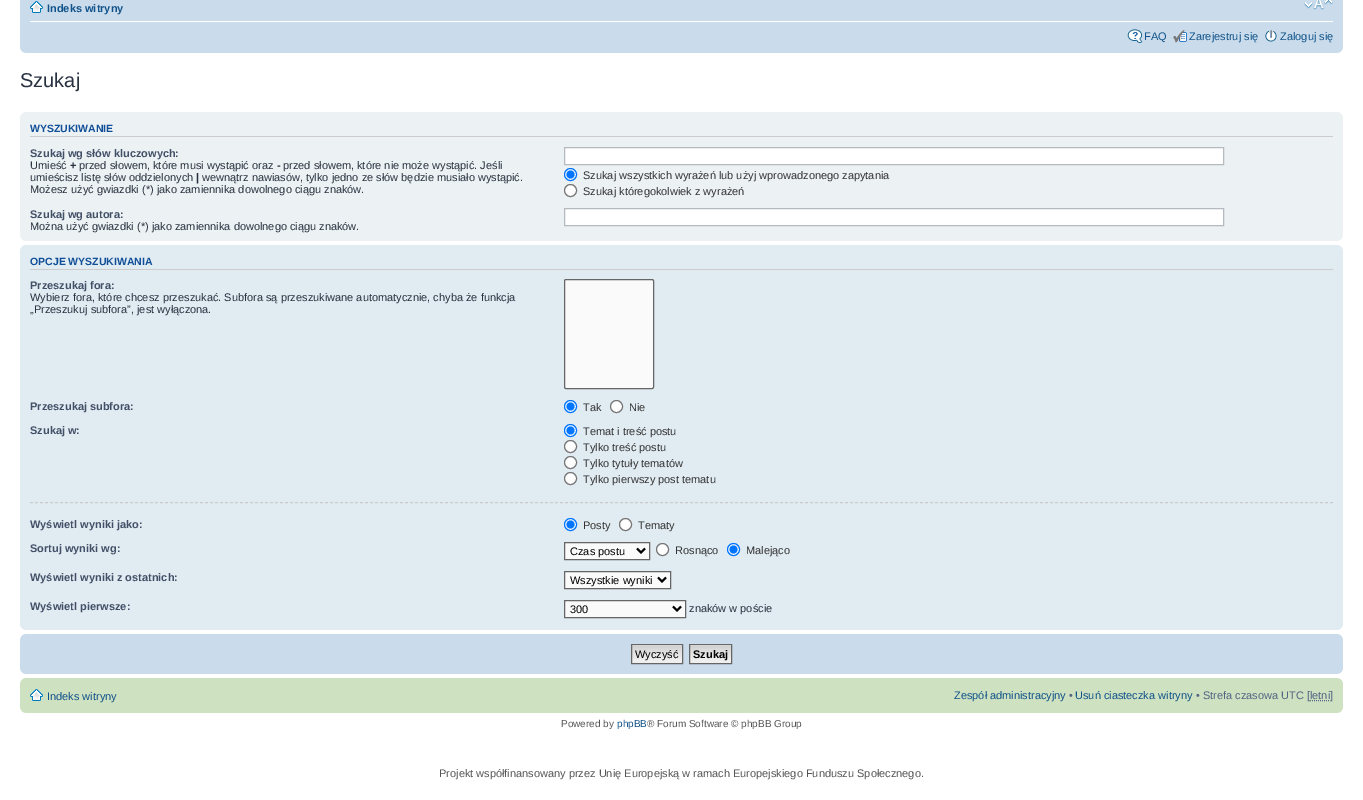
%!PS
<< /PageSize [1363 800] >> setpagedevice
/rgb { 3 { 255 div 3 1 roll } repeat setrgbcolor } def
/font { [ exch dup neg 0 0 3 -1 roll 0 0 ] selectfont } def
/text { moveto show } def
/circle { newpath 0 360 arc closepath } def
/roundrect { 5 dict begin { /r /h /w /y /x } { exch def } forall
  x r add y moveto x w add y 2 copy h add r arct x w add y h add x 1 index r arct
  x y h add x y r arct x y 2 copy exch w add exch r arct closepath end } def
/picture { 5 dict begin { /h /w /y /x /name } { exch def } forall
  gsave x y translate w h scale
  w h 8 [w 0 0 h 0 0] name (r) file false 3 colorimage grestore end } def
0 800 translate 1 -1 scale
4 setmiterlimit
255 255 255 rgb
0 0 1363 800 rectfill
202 220 235 rgb
20 0 1323 53 rectfill
255 255 255 rgb
30 21 1303 1 rectfill
(img_01.rgb) 30 1 13 12 picture
(img_02.rgb) 1304 0 29 10 picture
(img_03.rgb) 1127 29 16 14 picture
(img_04.rgb) 1173 30 14 13 picture
(img_05.rgb) 1265 30 12 12 picture
(img_06.rgb) 20 48 5 5 picture
(img_07.rgb) 1338 48 5 5 picture
236 241 243 rgb
20 112 1323 129 rectfill
(img_08.rgb) 20 112 5 5 picture
(img_09.rgb) 1338 112 5 5 picture
204 204 204 rgb
30 136 1303 1 rectfill
255 255 255 rgb
564.5 147.5 moveto 659 0 rlineto 0 17 rlineto -659 0 rlineto closepath gsave fill grestore
180 186 192 rgb
stroke
255 255 255 rgb
570.5 174.5 6 circle gsave fill grestore
0 117 255 rgb
stroke
570.5 174.5 4 circle fill
255 255 255 rgb
570.5 190.5 6 circle gsave fill grestore
118 118 118 rgb
stroke
255 255 255 rgb
564.5 208.5 moveto 659 0 rlineto 0 17 rlineto -659 0 rlineto closepath gsave fill grestore
180 186 192 rgb
stroke
(img_10.rgb) 20 236 5 5 picture
(img_11.rgb) 1338 236 5 5 picture
225 235 242 rgb
20 245 1323 385 rectfill
(img_12.rgb) 20 245 5 5 picture
(img_13.rgb) 1338 245 5 5 picture
204 204 204 rgb
30 269 1303 1 rectfill
250 250 250 rgb
564.5 279.5 89 109 1.5 roundrect gsave fill grestore
102 102 102 rgb
stroke
255 255 255 rgb
570.5 406.5 6 circle gsave fill grestore
0 117 255 rgb
stroke
570.5 406.5 4 circle fill
255 255 255 rgb
616.5 406.5 6 circle gsave fill grestore
118 118 118 rgb
stroke
255 255 255 rgb
570.5 430.5 6 circle gsave fill grestore
0 117 255 rgb
stroke
570.5 430.5 4 circle fill
255 255 255 rgb
570.5 446.5 6 circle gsave fill grestore
118 118 118 rgb
stroke
255 255 255 rgb
570.5 462.5 6 circle gsave fill grestore
118 118 118 rgb
stroke
255 255 255 rgb
570.5 478.5 6 circle gsave fill grestore
118 118 118 rgb
stroke
204 204 204 rgb
[3 2] 0 setdash
30 502.5 moveto 1303 0 rlineto stroke
255 255 255 rgb
570.5 524.5 6 circle gsave fill grestore
0 117 255 rgb
[] 0 setdash
stroke
570.5 524.5 4 circle fill
255 255 255 rgb
625.5 524.5 6 circle gsave fill grestore
118 118 118 rgb
stroke
250 250 250 rgb
564.5 542.5 moveto 85 0 rlineto 0 17 rlineto -85 0 rlineto closepath gsave fill grestore
102 102 102 rgb
stroke
0 0 0 rgb
2 setlinewidth
637 548.5 moveto 4 4 rlineto 4 -4 rlineto stroke
255 255 255 rgb
662.5 549.5 6 circle gsave fill grestore
118 118 118 rgb
1 setlinewidth
stroke
255 255 255 rgb
733.5 549.5 6 circle gsave fill grestore
0 117 255 rgb
stroke
733.5 549.5 4 circle fill
250 250 250 rgb
564.5 571.5 moveto 106 0 rlineto 0 17 rlineto -106 0 rlineto closepath gsave fill grestore
102 102 102 rgb
stroke
0 0 0 rgb
2 setlinewidth
658 577.5 moveto 4 4 rlineto 4 -4 rlineto stroke
250 250 250 rgb
564.5 600.5 moveto 121 0 rlineto 0 17 rlineto -121 0 rlineto closepath gsave fill grestore
102 102 102 rgb
1 setlinewidth
stroke
0 0 0 rgb
2 setlinewidth
673 606.5 moveto 4 4 rlineto 4 -4 rlineto stroke
(img_14.rgb) 20 625 5 5 picture
(img_15.rgb) 1338 625 5 5 picture
202 220 235 rgb
20 634 1323 40 rectfill
(img_16.rgb) 20 634 5 5 picture
(img_17.rgb) 1338 634 5 5 picture
(img_18.rgb) 632 645 50 18 picture
102 102 102 rgb
1 setlinewidth
631.5 644.5 51 19 rectstroke
(img_19.rgb) 690 645 41 18 picture
689.5 644.5 42 19 rectstroke
(img_06.rgb) 20 669 5 5 picture
(img_07.rgb) 1338 669 5 5 picture
206 225 193 rgb
20 678 1323 35 rectfill
(img_20.rgb) 20 678 5 5 picture
(img_21.rgb) 1338 678 5 5 picture
(img_22.rgb) 30 689 13 12 picture
83 100 130 rgb
[1 1] 0 setdash
1310 700.5 moveto 20 0 rlineto stroke
(img_23.rgb) 20 708 5 5 picture
(img_24.rgb) 1338 708 5 5 picture
/LiberationSans-Bold 11 font
16 82 137 rgb
(Indeks witryny) 47 12 text
/LiberationSans-Regular 11 font
(FAQ) 1144 40 text
(Zarejestruj się) 1189 40 text
(Zaloguj się) 1280 40 text
/LiberationSans-Regular 20 font
40 49 63 rgb
(Szukaj) 20 87 text
/LiberationSans-Bold 10.5 font
17 80 152 rgb
(WYSZUKIWANIE) 30 132 text
/LiberationSans-Bold 11 font
66 80 103 rgb
(Szukaj wg słów kluczowych:) 30 157 text
/LiberationSans-Regular 11 font
40 49 63 rgb
(Umieść) 30 169 text
/LiberationSans-Bold 11 font
(+) 70 169 text
/LiberationSans-Regular 11 font
(przed słowem, które musi wystąpić oraz) 79 169 text
/LiberationSans-Bold 11 font
(-) 277 169 text
/LiberationSans-Regular 11 font
(przed słowem, które nie może wystąpić. Jeśli) 283 169 text
(umieścisz listę słów oddzielonych) 30 181 text
/LiberationSans-Bold 11 font
(|) 196 181 text
/LiberationSans-Regular 11 font
(wewnątrz nawiasów, tylko jedno ze słów będzie musiało wystąpić.) 202 181 text
(Możesz użyć gwiazdki \(*\) jako zamiennika dowolnego ciągu znaków.) 30 193 text
51 51 51 rgb
(Szukaj wszystkich wyrażeń lub użyj wprowadzonego zapytania) 583 179 text
(Szukaj któregokolwiek z wyrażeń) 583 195 text
/LiberationSans-Bold 11 font
66 80 103 rgb
(Szukaj wg autora:) 30 218 text
/LiberationSans-Regular 11 font
40 49 63 rgb
(Można użyć gwiazdki \(*\) jako zamiennika dowolnego ciągu znaków.) 30 230 text
/LiberationSans-Bold 10.5 font
17 80 152 rgb
(OPCJE WYSZUKIWANIA) 30 265 text
/LiberationSans-Bold 11 font
66 80 103 rgb
(Przeszukaj fora:) 30 289 text
/LiberationSans-Regular 11 font
40 49 63 rgb
(Wybierz fora, które chcesz przeszukać. Subfora są przeszukiwane automatycznie, chyba że funkcja) 30 301 text
(„Przeszukuj subfora”, jest wyłączona.) 30 313 text
/LiberationSans-Bold 11 font
66 80 103 rgb
(Przeszukaj subfora:) 30 410 text
/LiberationSans-Regular 11 font
51 51 51 rgb
(Tak) 583 411 text
(Nie) 629 411 text
/LiberationSans-Bold 11 font
66 80 103 rgb
(Szukaj w:) 30 434 text
/LiberationSans-Regular 11 font
51 51 51 rgb
(Temat i treść postu) 583 435 text
(Tylko treść postu) 583 451 text
(Tylko tytuły tematów) 583 467 text
(Tylko pierwszy post tematu) 583 483 text
/LiberationSans-Bold 11 font
66 80 103 rgb
(Wyświetl wyniki jako:) 30 528 text
/LiberationSans-Regular 11 font
51 51 51 rgb
(Posty) 583 529 text
(Tematy) 638 529 text
/LiberationSans-Bold 11 font
66 80 103 rgb
(Sortuj wyniki wg:) 30 552 text
/LiberationSans-Regular 11 font
0 0 0 rgb
(Czas postu) 570 555 text
51 51 51 rgb
(Rosnąco) 675 554 text
(Malejąco) 746 554 text
/LiberationSans-Bold 11 font
66 80 103 rgb
(Wyświetl wyniki z ostatnich:) 30 581 text
/LiberationSans-Regular 11 font
0 0 0 rgb
(Wszystkie wyniki) 570 584 text
/LiberationSans-Bold 11 font
66 80 103 rgb
(Wyświetl pierwsze:) 30 610 text
/LiberationSans-Regular 11 font
0 0 0 rgb
(300) 570 613 text
40 49 63 rgb
(znaków w poście) 689 612 text
0 0 0 rgb
(Wyczyść) 635 658 text
/LiberationSans-Bold 11 font
(Szukaj) 693 658 text
/LiberationSans-Regular 11 font
16 82 137 rgb
(Indeks witryny) 47 700 text
(Zespół administracyjny) 954 699 text
83 100 130 rgb
(•) 1069 699 text
16 82 137 rgb
(Usuń ciasteczka witryny) 1075 699 text
83 100 130 rgb
(• Strefa czasowa UTC [letni]) 1196 699 text
/LiberationSans-Regular 10 font
85 85 85 rgb
(Powered by) 561 727 text
16 82 137 rgb
(phpBB) 617 727 text
85 85 85 rgb
(® Forum Software © phpBB Group) 647 727 text
/LiberationSans-Regular 11 font
(Projekt współfinansowany przez Unię Europejską w ramach Europejskiego Funduszu Społecznego.) 439 777 text
showpage
